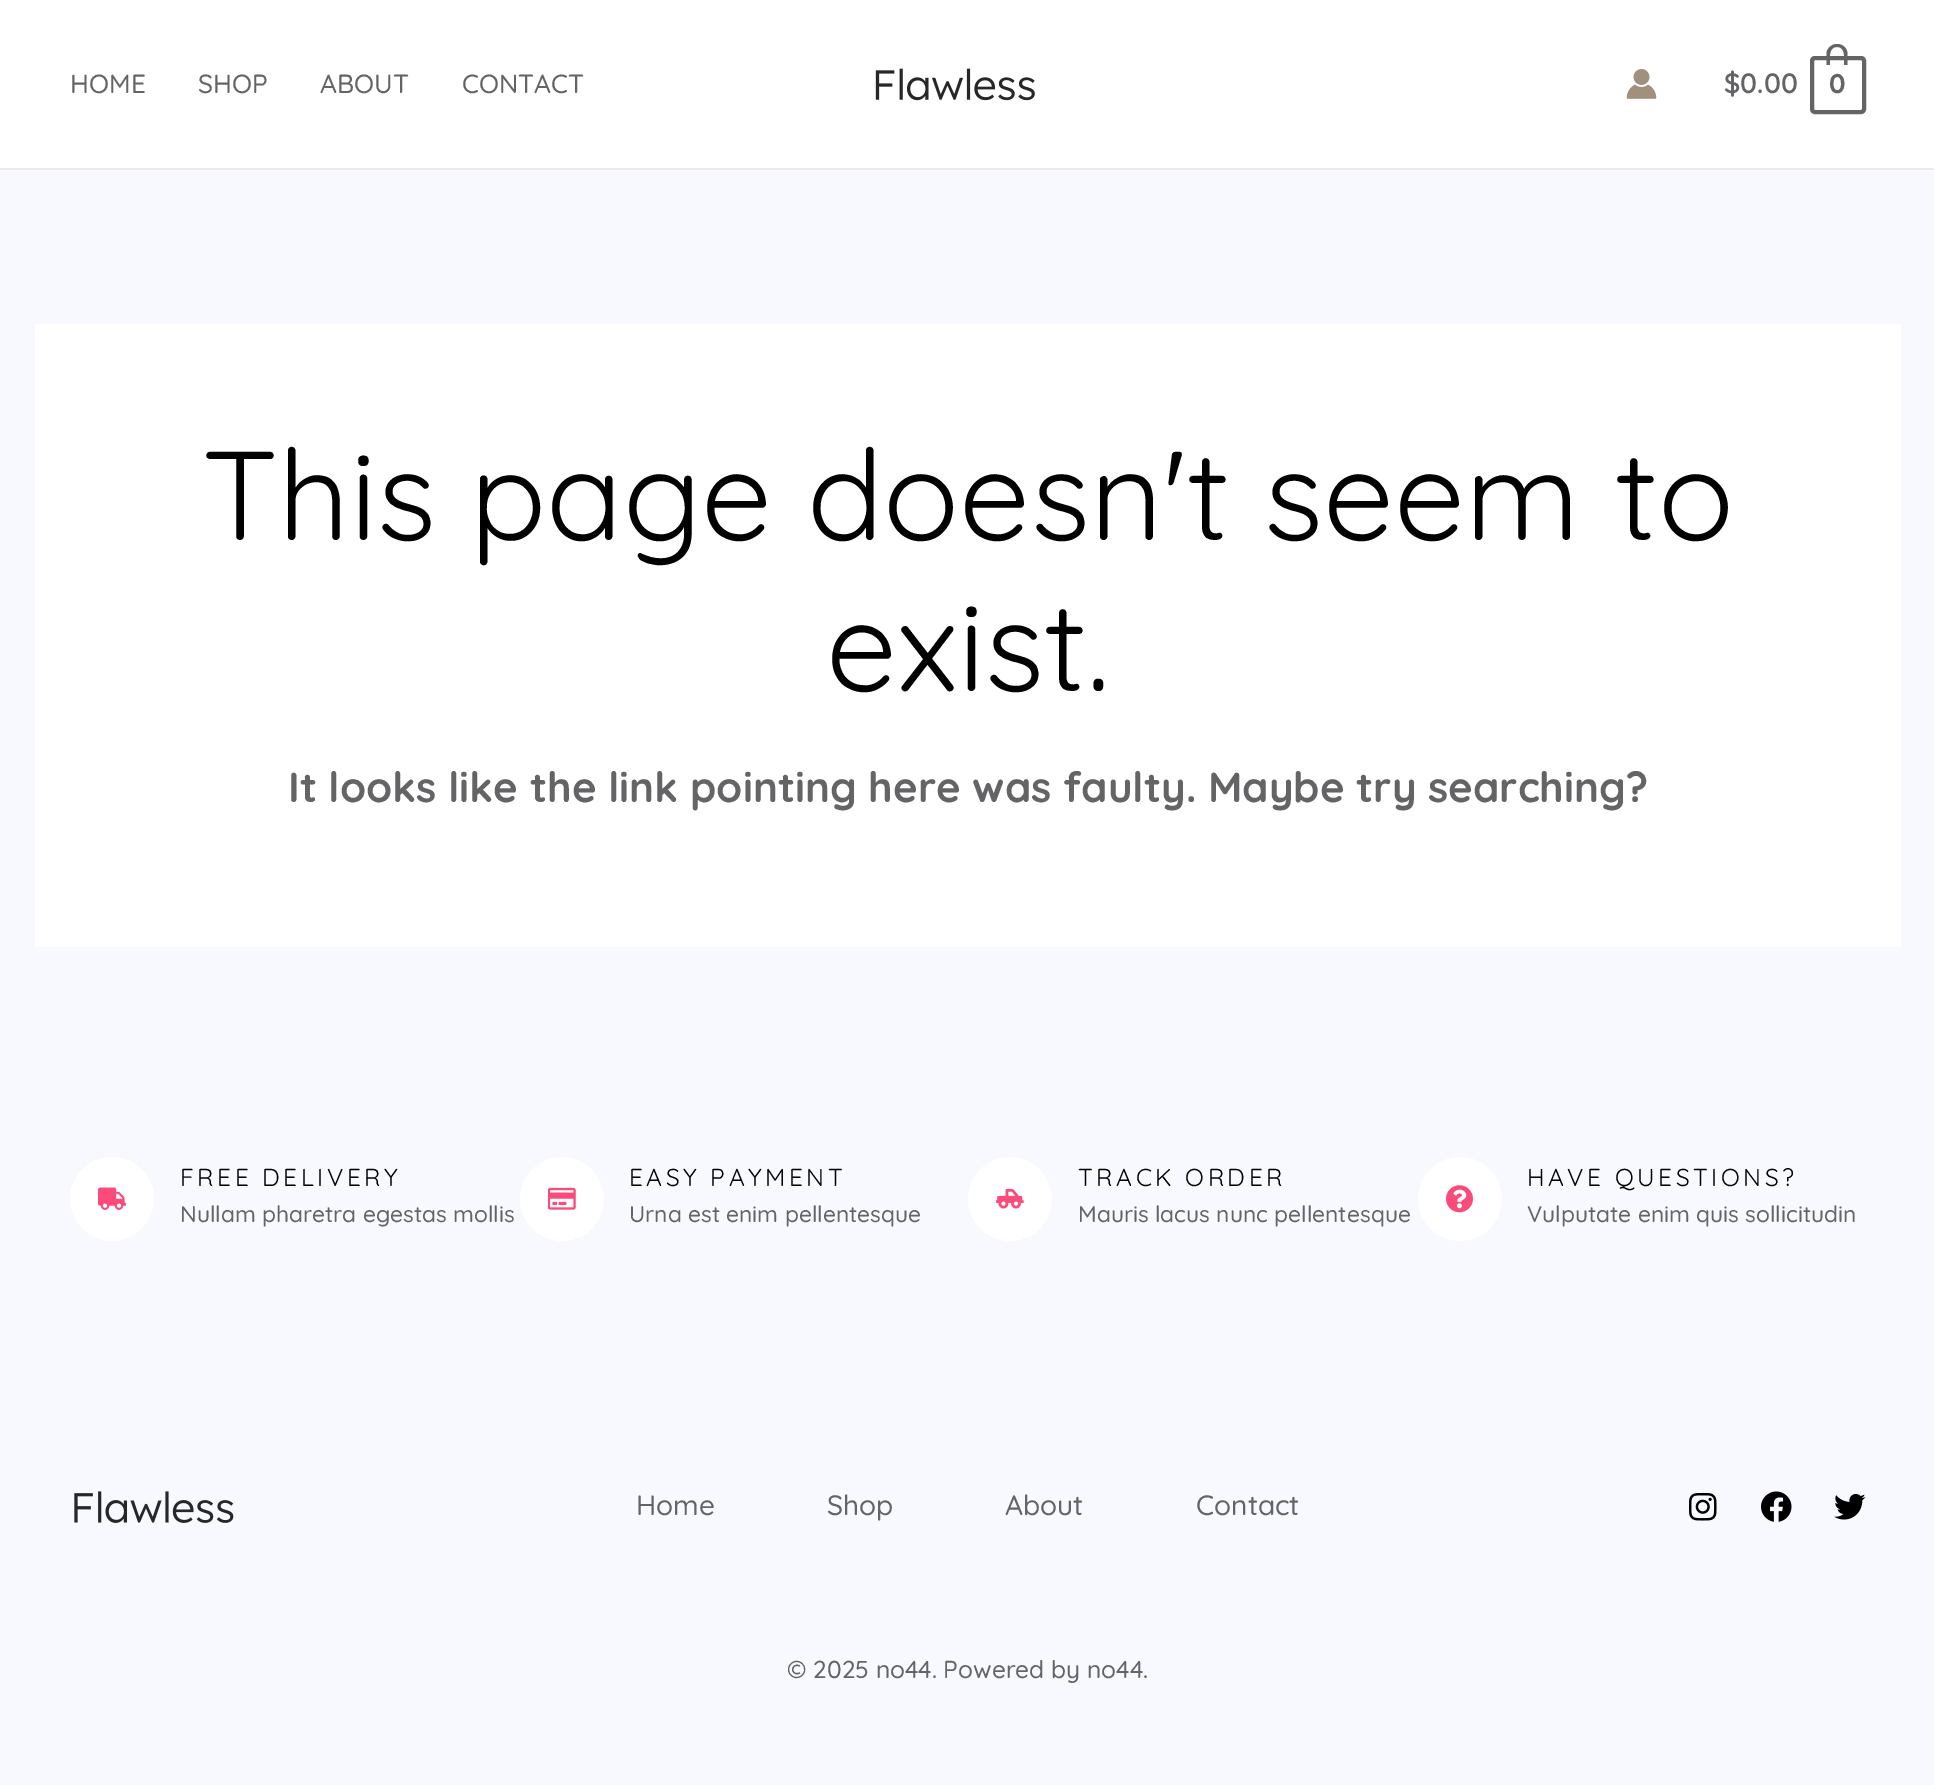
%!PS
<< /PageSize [1934 1785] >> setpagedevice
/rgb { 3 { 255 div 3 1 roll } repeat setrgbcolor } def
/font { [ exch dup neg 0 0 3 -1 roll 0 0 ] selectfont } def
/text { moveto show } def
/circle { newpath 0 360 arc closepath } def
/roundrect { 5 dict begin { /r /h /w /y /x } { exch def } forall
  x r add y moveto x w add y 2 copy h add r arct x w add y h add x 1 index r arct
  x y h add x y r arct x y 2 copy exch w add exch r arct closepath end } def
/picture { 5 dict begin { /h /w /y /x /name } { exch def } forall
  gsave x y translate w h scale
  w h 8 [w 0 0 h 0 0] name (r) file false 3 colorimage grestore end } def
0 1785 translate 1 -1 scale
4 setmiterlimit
248 248 255 rgb
0 0 1934 1785 rectfill
255 255 255 rgb
0 0 1934 168 rectfill
234 234 234 rgb
0 168 1934 2 rectfill
(img_01.rgb) 875 68 160 33 picture
(img_02.rgb) 1626 69 31 30 picture
100 100 103 rgb
4 setlinewidth
1812 58 52 54 3 roundrect stroke
1837 44 moveto 6 0 10.5 4.5 10.5 10 rcurveto 0 11 rlineto -21 0 rlineto 0 -11 rlineto 0 -5.5 5 -10 10.5 -10 rcurveto closepath 1837 47 moveto 9 0 7 12 7 18 rcurveto -14 0 rlineto 0 -6 -2 -18 7 -18 rcurveto closepath eofill
255 255 255 rgb
35 324 1866 623 rectfill
112 1199 42 circle fill
(img_03.rgb) 98 1187 28 23 picture
562 1199 42 circle fill
(img_04.rgb) 548 1187 28 23 picture
1010 1199 42 circle fill
(img_05.rgb) 996 1188 28 21 picture
1460 1199 42 circle fill
(img_06.rgb) 1446 1185 28 28 picture
(img_07.rgb) 74 1491 160 32 picture
(img_08.rgb) 1688 1492 29 29 picture
(img_09.rgb) 1761 1491 31 31 picture
(img_10.rgb) 1834 1494 32 26 picture
/Quicksand-Medium 26.25 font
100 100 103 rgb
(HOME) 70 93 text
(SHOP) 198 93 text
(ABOUT) 320 93 text
(CONTACT) 462 93 text
/Quicksand-SemiBold 28 font
($0.00) 1724 93 text
/Quicksand-Bold 27 font
(0) 1829 93 text
/Quicksand-Regular 126 font
0 0 0 rgb
(This page doesn't seem to) 202 540 text
(exist.) 826 691 text
/Quicksand-Bold 42 font
100 100 103 rgb
(It looks like the link pointing here was faulty. Maybe try searching?) 288 802 text
/Quicksand-Regular 24.5 font
0 0 0 rgb
180 1186 moveto 3.5 0 (FREE DELIVERY) ashow
/Quicksand-Medium 22.75 font
100 100 103 rgb
(Nullam pharetra egestas mollis) 180 1222 text
/Quicksand-Regular 24.5 font
0 0 0 rgb
629 1186 moveto 3.5 0 (EASY PAYMENT) ashow
/Quicksand-Medium 22.75 font
100 100 103 rgb
(Urna est enim pellentesque) 629 1222 text
/Quicksand-Regular 24.5 font
0 0 0 rgb
1078 1186 moveto 3.5 0 (TRACK ORDER) ashow
/Quicksand-Medium 22.75 font
100 100 103 rgb
(Mauris lacus nunc pellentesque) 1078 1222 text
/Quicksand-Regular 24.5 font
0 0 0 rgb
1527 1186 moveto 3.5 0 (HAVE QUESTIONS?) ashow
/Quicksand-Medium 22.75 font
100 100 103 rgb
(Vulputate enim quis sollicitudin) 1527 1222 text
/Quicksand-Medium 28 font
(Home) 636 1515 text
(Shop) 827 1515 text
(About) 1005 1515 text
(Contact) 1196 1515 text
/Quicksand-Medium 24.5 font
(© 2025 no44. Powered by no44.) 787 1678 text
showpage
